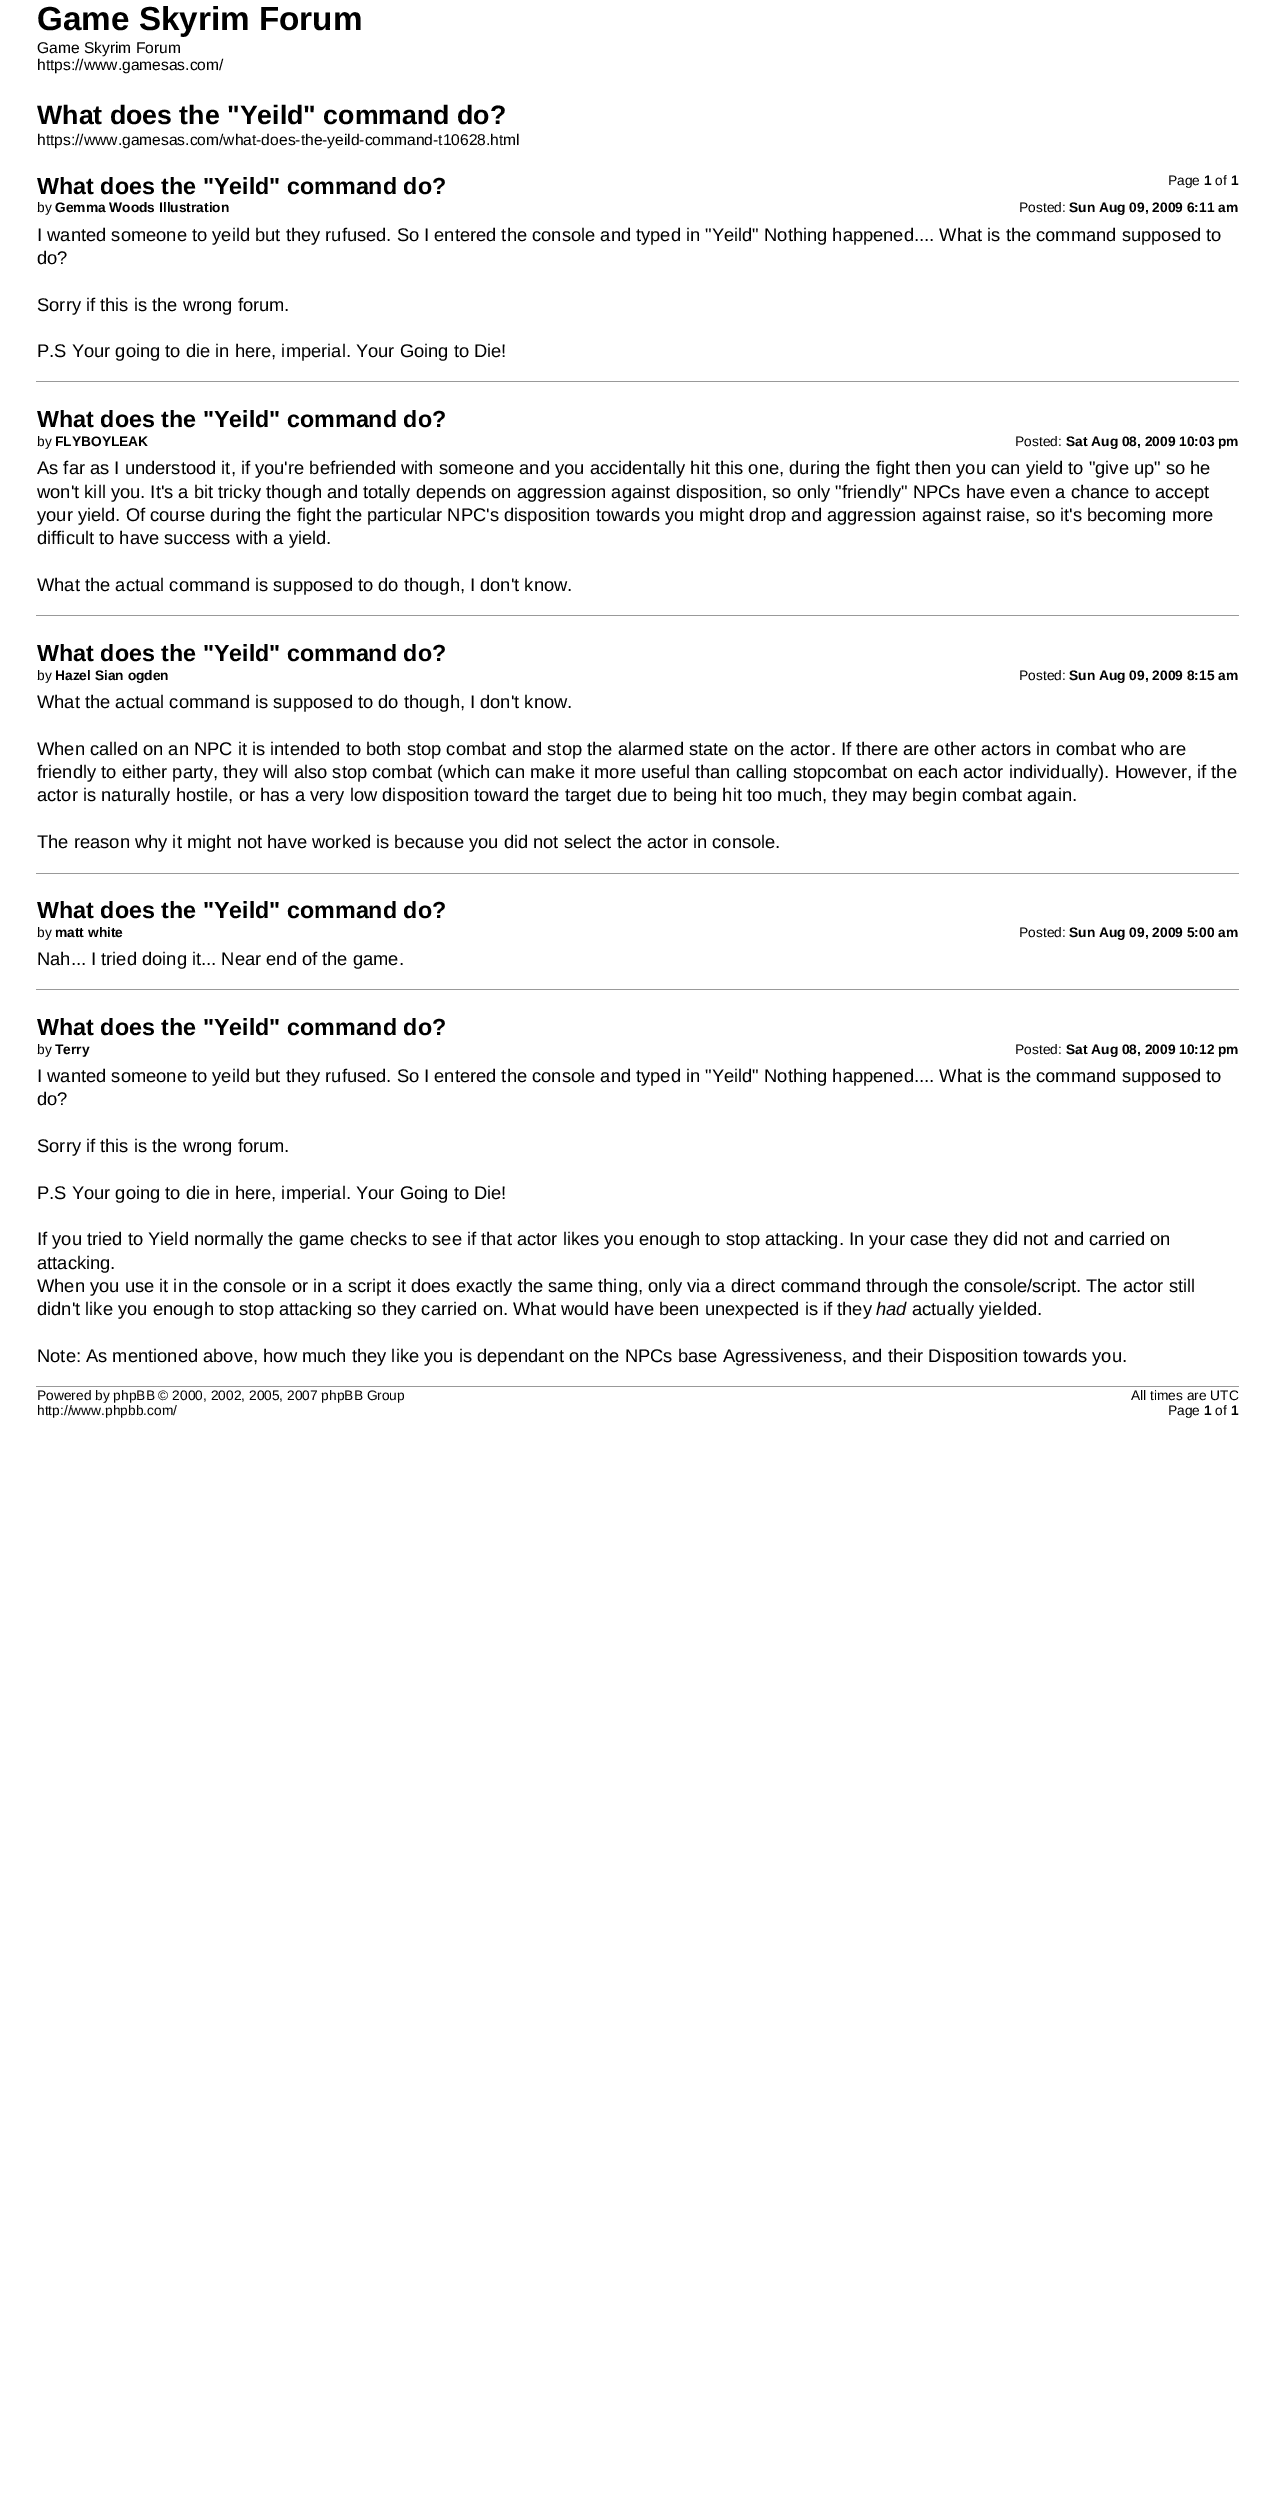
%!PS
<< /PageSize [1274 2518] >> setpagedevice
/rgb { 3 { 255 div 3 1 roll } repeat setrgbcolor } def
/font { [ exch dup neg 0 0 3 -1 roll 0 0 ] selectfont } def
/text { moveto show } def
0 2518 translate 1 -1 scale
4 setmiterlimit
255 255 255 rgb
0 0 1274 2518 rectfill
153 153 153 rgb
36 381 1203 1 rectfill
36 615 1203 1 rectfill
36 873 1203 1 rectfill
36 989 1203 1 rectfill
36 1386 1203 1 rectfill
/LiberationSans-Bold 33.25 font
0 0 0 rgb
(Game Skyrim Forum) 37 30 text
/LiberationSans-Regular 15.6 font
(Game Skyrim Forum) 37 53 text
(https://www.gamesas.com/) 37 70 text
/LiberationSans-Bold 26.7 font
(What does the "Yeild" command do?) 37 124 text
/LiberationSans-Regular 15.6 font
(https://www.gamesas.com/what-does-the-yeild-command-t10628.html) 37 145 text
/LiberationSans-Regular 13.75 font
(Page) 1168 185 text
/LiberationSans-Bold 13.75 font
(1) 1204 185 text
/LiberationSans-Regular 13.75 font
(of) 1215 185 text
/LiberationSans-Bold 13.75 font
(1) 1231 185 text
/LiberationSans-Bold 23.3 font
(What does the "Yeild" command do?) 37 194 text
/LiberationSans-Regular 13.75 font
(by) 37 212 text
/LiberationSans-Bold 13.75 font
(Gemma Woods Illustration) 55 212 text
/LiberationSans-Regular 13.75 font
(Posted:) 1019 212 text
/LiberationSans-Bold 13.75 font
(Sun Aug 09, 2009 6:11 am) 1069 212 text
/LiberationSans-Regular 18.33 font
(I wanted someone to yeild but they rufused. So I entered the console and typed in "Yeild" Nothing happened.... What is the command supposed to) 37 241 text
(do?) 37 264 text
(Sorry if this is the wrong forum.) 37 311 text
(P.S Your going to die in here, imperial. Your Going to Die!) 37 357 text
/LiberationSans-Bold 23.3 font
(What does the "Yeild" command do?) 37 427 text
/LiberationSans-Regular 13.75 font
(by) 37 446 text
/LiberationSans-Bold 13.75 font
(FLYBOYLEAK) 55 446 text
/LiberationSans-Regular 13.75 font
(Posted:) 1015 446 text
/LiberationSans-Bold 13.75 font
(Sat Aug 08, 2009 10:03 pm) 1066 446 text
/LiberationSans-Regular 18.33 font
(As far as I understood it, if you're befriended with someone and you accidentally hit this one, during the fight then you can yield to "give up" so he) 37 474 text
(won't kill you. It's a bit tricky though and totally depends on aggression against disposition, so only "friendly" NPCs have even a chance to accept) 37 498 text
(your yield. Of course during the fight the particular NPC's disposition towards you might drop and aggression against raise, so it's becoming more) 37 521 text
(difficult to have success with a yield.) 37 544 text
(What the actual command is supposed to do though, I don't know.) 37 591 text
/LiberationSans-Bold 23.3 font
(What does the "Yeild" command do?) 37 661 text
/LiberationSans-Regular 13.75 font
(by) 37 680 text
/LiberationSans-Bold 13.75 font
(Hazel Sian ogden) 55 680 text
/LiberationSans-Regular 13.75 font
(Posted:) 1019 680 text
/LiberationSans-Bold 13.75 font
(Sun Aug 09, 2009 8:15 am) 1069 680 text
/LiberationSans-Regular 18.33 font
(What the actual command is supposed to do though, I don't know.) 37 708 text
(When called on an NPC it is intended to both stop combat and stop the alarmed state on the actor. If there are other actors in combat who are) 37 755 text
(friendly to either party, they will also stop combat \(which can make it more useful than calling stopcombat on each actor individually\). However, if the) 37 778 text
(actor is naturally hostile, or has a very low disposition toward the target due to being hit too much, they may begin combat again.) 37 801 text
(The reason why it might not have worked is because you did not select the actor in console.) 37 848 text
/LiberationSans-Bold 23.3 font
(What does the "Yeild" command do?) 37 918 text
/LiberationSans-Regular 13.75 font
(by) 37 937 text
/LiberationSans-Bold 13.75 font
(matt white) 55 937 text
/LiberationSans-Regular 13.75 font
(Posted:) 1019 937 text
/LiberationSans-Bold 13.75 font
(Sun Aug 09, 2009 5:00 am) 1069 937 text
/LiberationSans-Regular 18.33 font
(Nah... I tried doing it... Near end of the game.) 37 965 text
/LiberationSans-Bold 23.3 font
(What does the "Yeild" command do?) 37 1035 text
/LiberationSans-Regular 13.75 font
(by) 37 1054 text
/LiberationSans-Bold 13.75 font
(Terry) 55 1054 text
/LiberationSans-Regular 13.75 font
(Posted:) 1015 1054 text
/LiberationSans-Bold 13.75 font
(Sat Aug 08, 2009 10:12 pm) 1066 1054 text
/LiberationSans-Regular 18.33 font
(I wanted someone to yeild but they rufused. So I entered the console and typed in "Yeild" Nothing happened.... What is the command supposed to) 37 1082 text
(do?) 37 1105 text
(Sorry if this is the wrong forum.) 37 1152 text
(P.S Your going to die in here, imperial. Your Going to Die!) 37 1199 text
(If you tried to Yield normally the game checks to see if that actor likes you enough to stop attacking. In your case they did not and carried on) 37 1245 text
(attacking.) 37 1269 text
(When you use it in the console or in a script it does exactly the same thing, only via a direct command through the console/script. The actor still) 37 1292 text
(didn't like you enough to stop attacking so they carried on. What would have been unexpected is if they) 37 1315 text
/LiberationSans-Italic 18.33 font
(had) 876 1315 text
/LiberationSans-Regular 18.33 font
(actually yielded.) 912 1315 text
(Note: As mentioned above, how much they like you is dependant on the NPCs base Agressiveness, and their Disposition towards you.) 37 1362 text
/LiberationSans-Regular 13.75 font
(Powered by phpBB © 2000, 2002, 2005, 2007 phpBB Group) 37 1400 text
(http://www.phpbb.com/) 37 1415 text
(All times are UTC) 1131 1400 text
(Page) 1168 1415 text
/LiberationSans-Bold 13.75 font
(1) 1204 1415 text
/LiberationSans-Regular 13.75 font
(of) 1215 1415 text
/LiberationSans-Bold 13.75 font
(1) 1231 1415 text
showpage
